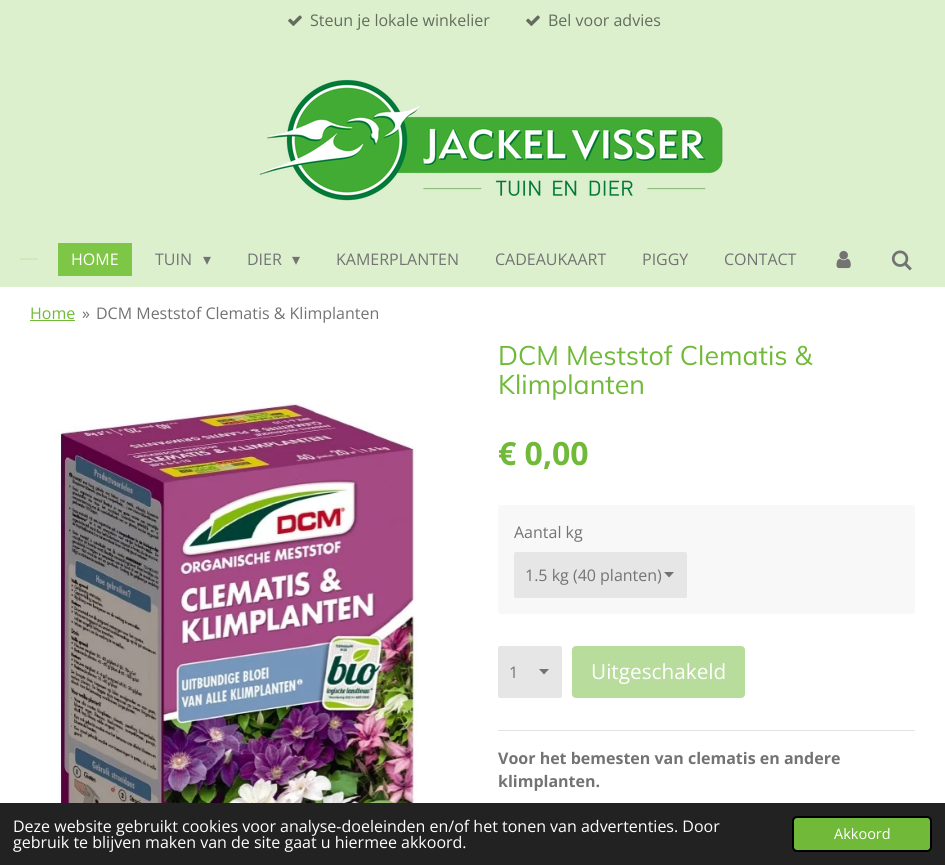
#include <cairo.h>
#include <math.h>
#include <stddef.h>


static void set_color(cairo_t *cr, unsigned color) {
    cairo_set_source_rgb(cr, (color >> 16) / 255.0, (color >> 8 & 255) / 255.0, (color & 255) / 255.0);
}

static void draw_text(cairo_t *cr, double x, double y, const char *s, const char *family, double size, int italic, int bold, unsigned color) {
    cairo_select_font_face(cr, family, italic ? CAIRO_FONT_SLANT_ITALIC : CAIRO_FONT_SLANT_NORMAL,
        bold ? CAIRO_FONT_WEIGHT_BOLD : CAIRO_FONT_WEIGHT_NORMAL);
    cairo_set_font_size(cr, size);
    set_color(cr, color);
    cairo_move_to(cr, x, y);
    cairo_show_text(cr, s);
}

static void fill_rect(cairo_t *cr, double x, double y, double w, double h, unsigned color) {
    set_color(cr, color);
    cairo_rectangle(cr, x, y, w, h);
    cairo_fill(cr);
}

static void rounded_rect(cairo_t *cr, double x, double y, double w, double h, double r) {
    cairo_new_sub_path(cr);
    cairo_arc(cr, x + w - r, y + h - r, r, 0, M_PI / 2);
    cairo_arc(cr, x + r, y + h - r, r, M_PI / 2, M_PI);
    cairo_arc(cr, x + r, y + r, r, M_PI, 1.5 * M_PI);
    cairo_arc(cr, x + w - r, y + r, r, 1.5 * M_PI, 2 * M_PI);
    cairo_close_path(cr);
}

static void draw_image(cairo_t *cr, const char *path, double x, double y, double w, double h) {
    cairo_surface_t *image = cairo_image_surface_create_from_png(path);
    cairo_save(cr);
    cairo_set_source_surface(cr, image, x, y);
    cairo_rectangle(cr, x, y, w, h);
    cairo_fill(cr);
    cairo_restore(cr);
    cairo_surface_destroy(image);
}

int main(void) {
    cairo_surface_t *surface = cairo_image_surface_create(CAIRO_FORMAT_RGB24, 945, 865);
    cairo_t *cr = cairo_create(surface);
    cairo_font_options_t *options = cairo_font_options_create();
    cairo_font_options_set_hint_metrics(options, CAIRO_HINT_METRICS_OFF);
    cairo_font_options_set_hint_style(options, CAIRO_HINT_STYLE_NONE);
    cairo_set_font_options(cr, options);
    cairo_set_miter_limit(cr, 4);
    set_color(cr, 0xDDF0CE);
    cairo_paint(cr);
    draw_image(cr, "assets/img1.png", 288, 15, 14, 11);
    draw_text(cr, 310, 26, "Steun je lokale winkelier", "Open Sans", 16, 0, 0, 0x636C5D);
    draw_image(cr, "assets/img1.png", 526, 15, 14, 11);
    draw_text(cr, 548, 26, "Bel voor advies", "Open Sans", 16, 0, 0, 0x636C5D);
    draw_image(cr, "assets/img2.png", 259, 79, 464, 122);
    fill_rect(cr, 20, 258, 18, 2, 0xCFEABA);
    fill_rect(cr, 58, 243, 74, 33, 0x7EC645);
    draw_text(cr, 71, 265, "HOME", "Open Sans", 16, 0, 0, 0xFFFFFF);
    draw_text(cr, 155, 265, "TUIN", "Open Sans", 16, 0, 0, 0x737373);
    draw_text(cr, 203, 265, "▾", "DejaVu Sans", 16, 0, 0, 0x737373);
    draw_text(cr, 247, 265, "DIER", "Open Sans", 16, 0, 0, 0x737373);
    draw_text(cr, 292, 265, "▾", "DejaVu Sans", 16, 0, 0, 0x737373);
    draw_text(cr, 336, 265, "KAMERPLANTEN", "Open Sans", 16, 0, 0, 0x737373);
    draw_text(cr, 495, 265, "CADEAUKAART", "Open Sans", 16, 0, 0, 0x737373);
    draw_text(cr, 642, 265, "PIGGY", "Open Sans", 16, 0, 0, 0x737373);
    draw_text(cr, 724, 265, "CONTACT", "Open Sans", 16, 0, 0, 0x737373);
    draw_image(cr, "assets/img3.png", 836, 250, 15, 19);
    draw_image(cr, "assets/img4.png", 891, 250, 21, 21);
    fill_rect(cr, 0, 287, 945, 516, 0xFFFFFF);
    draw_text(cr, 30, 319, "Home", "Open Sans", 16, 0, 0, 0x71B939);
    fill_rect(cr, 30, 320, 45, 1, 0x71B939);
    draw_text(cr, 82, 319, "»", "Open Sans", 16, 0, 0, 0x737373);
    draw_text(cr, 96, 319, "DCM Meststof Clematis & Klimplanten", "Open Sans", 16, 0, 0, 0x737373);
    draw_text(cr, 498, 365, "DCM Meststof Clematis &", "Muli", 26.75, 0, 0, 0x71B939);
    draw_text(cr, 498, 394, "Klimplanten", "Muli", 26.75, 0, 0, 0x71B939);
    draw_image(cr, "assets/img5.png", 57, 402, 360, 401);
    draw_text(cr, 498, 465, "€ 0,00", "Open Sans", 32, 0, 1, 0x71B939);
    set_color(cr, 0xF8F8F8);
    rounded_rect(cr, 498, 505, 417, 109, 3);
    cairo_fill(cr);
    draw_text(cr, 514, 538, "Aantal kg", "Open Sans", 16, 0, 0, 0x737373);
    set_color(cr, 0xE6E6E6);
    rounded_rect(cr, 514, 552, 173, 46, 2);
    cairo_fill(cr);
    set_color(cr, 0x737373);
    cairo_new_path(cr);
    cairo_move_to(cr, 669, 577.5);
    cairo_line_to(cr, 664, 572);
    cairo_line_to(cr, 674, 572);
    cairo_close_path(cr);
    cairo_fill(cr);
    draw_text(cr, 525, 581, "1.5 kg (40 planten)", "Open Sans", 16, 0, 0, 0x737373);
    set_color(cr, 0xE6E6E6);
    rounded_rect(cr, 498, 646, 64, 52, 2);
    cairo_fill(cr);
    set_color(cr, 0x737373);
    cairo_new_path(cr);
    cairo_move_to(cr, 544, 674.5);
    cairo_line_to(cr, 539, 669);
    cairo_line_to(cr, 549, 669);
    cairo_close_path(cr);
    cairo_fill(cr);
    draw_text(cr, 509, 678, "1", "Open Sans", 16, 0, 0, 0x737373);
    set_color(cr, 0xB8DC9C);
    rounded_rect(cr, 572, 646, 173, 52, 4);
    cairo_fill(cr);
    draw_text(cr, 591, 679, "Uitgeschakeld", "Open Sans", 20.75, 0, 0, 0xFFFFFF);
    fill_rect(cr, 498, 730, 417, 1, 0xE3E3E3);
    draw_text(cr, 498, 764, "Voor het bemesten van clematis en andere", "Open Sans", 16, 0, 1, 0x737373);
    draw_text(cr, 498, 787, "klimplanten.", "Open Sans", 16, 0, 1, 0x737373);
    fill_rect(cr, 0, 803, 945, 62, 0x222222);
    draw_text(cr, 13, 832, "Deze website gebruikt cookies voor analyse-doeleinden en/of het tonen van advertenties. Door", "Open Sans", 16, 0, 0, 0xFFFFFF);
    draw_text(cr, 13, 848, "gebruik te blijven maken van de site gaat u hiermee akkoord.", "Open Sans", 16, 0, 0, 0xFFFFFF);
    set_color(cr, 0x71B939);
    rounded_rect(cr, 793, 817, 138, 34, 4);
    cairo_fill_preserve(cr);
    set_color(cr, 0x000000);
    cairo_stroke(cr);
    draw_text(cr, 834, 839, "Akkoord", "Open Sans", 14.5, 0, 0, 0xFFFFFF);
    cairo_surface_write_to_png(surface, "output.png");
    cairo_font_options_destroy(options);
    cairo_destroy(cr);
    cairo_surface_destroy(surface);
    return 0;
}
